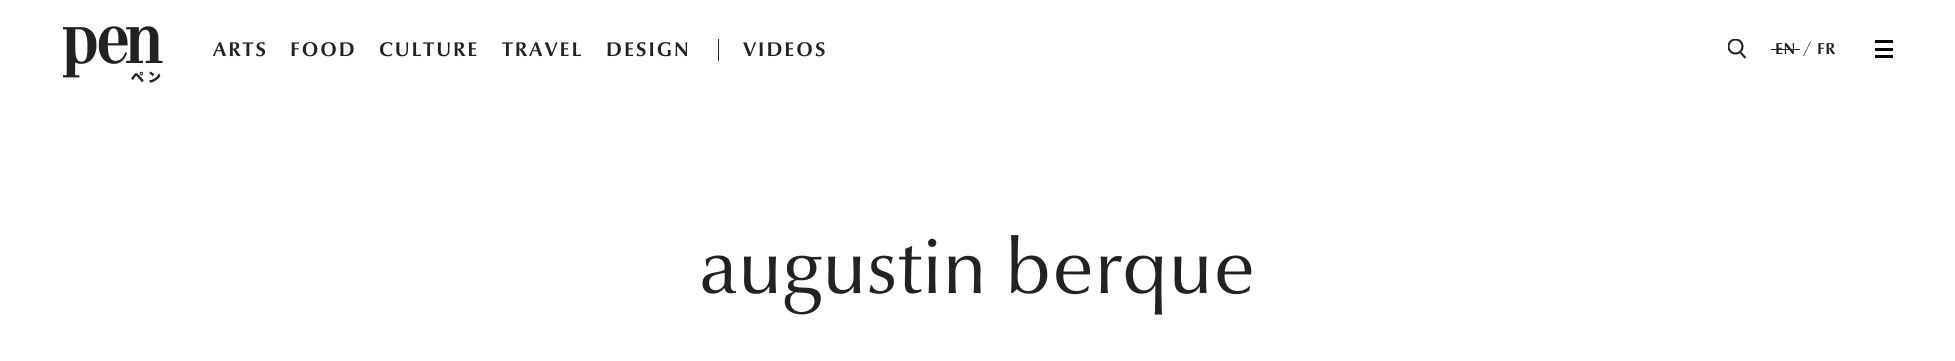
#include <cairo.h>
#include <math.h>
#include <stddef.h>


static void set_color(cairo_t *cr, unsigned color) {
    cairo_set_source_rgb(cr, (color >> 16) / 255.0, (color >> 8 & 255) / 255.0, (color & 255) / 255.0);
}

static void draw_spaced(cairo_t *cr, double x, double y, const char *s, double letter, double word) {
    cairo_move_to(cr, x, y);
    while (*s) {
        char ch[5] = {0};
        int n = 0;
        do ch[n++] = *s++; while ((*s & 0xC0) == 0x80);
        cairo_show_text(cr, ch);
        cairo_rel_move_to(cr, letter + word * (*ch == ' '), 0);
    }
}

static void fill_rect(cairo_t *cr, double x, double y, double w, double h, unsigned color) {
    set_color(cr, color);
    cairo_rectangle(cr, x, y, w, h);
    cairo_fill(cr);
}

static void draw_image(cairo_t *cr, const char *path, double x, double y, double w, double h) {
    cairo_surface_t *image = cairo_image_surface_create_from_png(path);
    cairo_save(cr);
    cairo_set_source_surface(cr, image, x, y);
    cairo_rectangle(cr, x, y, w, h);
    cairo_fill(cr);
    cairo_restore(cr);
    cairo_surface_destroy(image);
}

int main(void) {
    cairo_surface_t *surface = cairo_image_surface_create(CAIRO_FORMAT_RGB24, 1955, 361);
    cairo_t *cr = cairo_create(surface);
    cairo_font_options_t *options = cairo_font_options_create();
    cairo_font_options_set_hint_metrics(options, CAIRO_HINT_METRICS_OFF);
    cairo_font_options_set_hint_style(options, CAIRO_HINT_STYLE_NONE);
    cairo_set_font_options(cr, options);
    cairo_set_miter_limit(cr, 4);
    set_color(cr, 0xFFFFFF);
    cairo_paint(cr);
    draw_image(cr, "assets/img1.png", 63, 26, 100, 57);
    cairo_select_font_face(cr, "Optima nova", CAIRO_FONT_SLANT_NORMAL, CAIRO_FONT_WEIGHT_BOLD);
    cairo_set_font_size(cr, 20);
    set_color(cr, 0x222222);
    draw_spaced(cr, 213, 56, "ARTS", 2, 0);
    draw_spaced(cr, 290, 56, "FOOD", 2, 0);
    draw_spaced(cr, 379, 56, "CULTURE", 2, 0);
    draw_spaced(cr, 502, 56, "TRAVEL", 2, 0);
    draw_spaced(cr, 606, 56, "DESIGN", 2, 0);
    fill_rect(cr, 718, 39, 1, 22, 0x222222);
    draw_spaced(cr, 743, 56, "VIDEOS", 2, 0);
    cairo_new_path(cr);
    cairo_move_to(cr, 1740.5, 52.5);
    cairo_line_to(cr, 1745.5, 58);
    cairo_set_line_width(cr, 2.1);
    cairo_stroke(cr);
    cairo_save(cr);
    cairo_rectangle(cr, 1728, 39, 18, 20);
    cairo_clip(cr);
    cairo_arc(cr, 1735.5, 46.5, 7, 0, 2 * M_PI);
    cairo_stroke(cr);
    cairo_restore(cr);
    cairo_set_font_size(cr, 16);
    draw_spaced(cr, 1775, 54, "EN", 0.5, 0);
    fill_rect(cr, 1771, 49, 29, 1, 0x222222);
    cairo_select_font_face(cr, "Optima nova", CAIRO_FONT_SLANT_NORMAL, CAIRO_FONT_WEIGHT_NORMAL);
    draw_spaced(cr, 1803, 54, "/", 0.5, 0);
    cairo_select_font_face(cr, "Optima nova", CAIRO_FONT_SLANT_NORMAL, CAIRO_FONT_WEIGHT_BOLD);
    draw_spaced(cr, 1817, 54, "FR", 0.5, 0);
    fill_rect(cr, 1875, 40, 18, 3, 0x000000);
    fill_rect(cr, 1875, 48, 18, 3, 0x000000);
    fill_rect(cr, 1875, 55, 18, 3, 0x000000);
    cairo_select_font_face(cr, "Optima nova", CAIRO_FONT_SLANT_NORMAL, CAIRO_FONT_WEIGHT_NORMAL);
    cairo_set_font_size(cr, 77.5);
    set_color(cr, 0x222222);
    draw_spaced(cr, 699, 293, "augustin berque", 0.5, 0);
    cairo_surface_write_to_png(surface, "output.png");
    cairo_font_options_destroy(options);
    cairo_destroy(cr);
    cairo_surface_destroy(surface);
    return 0;
}
